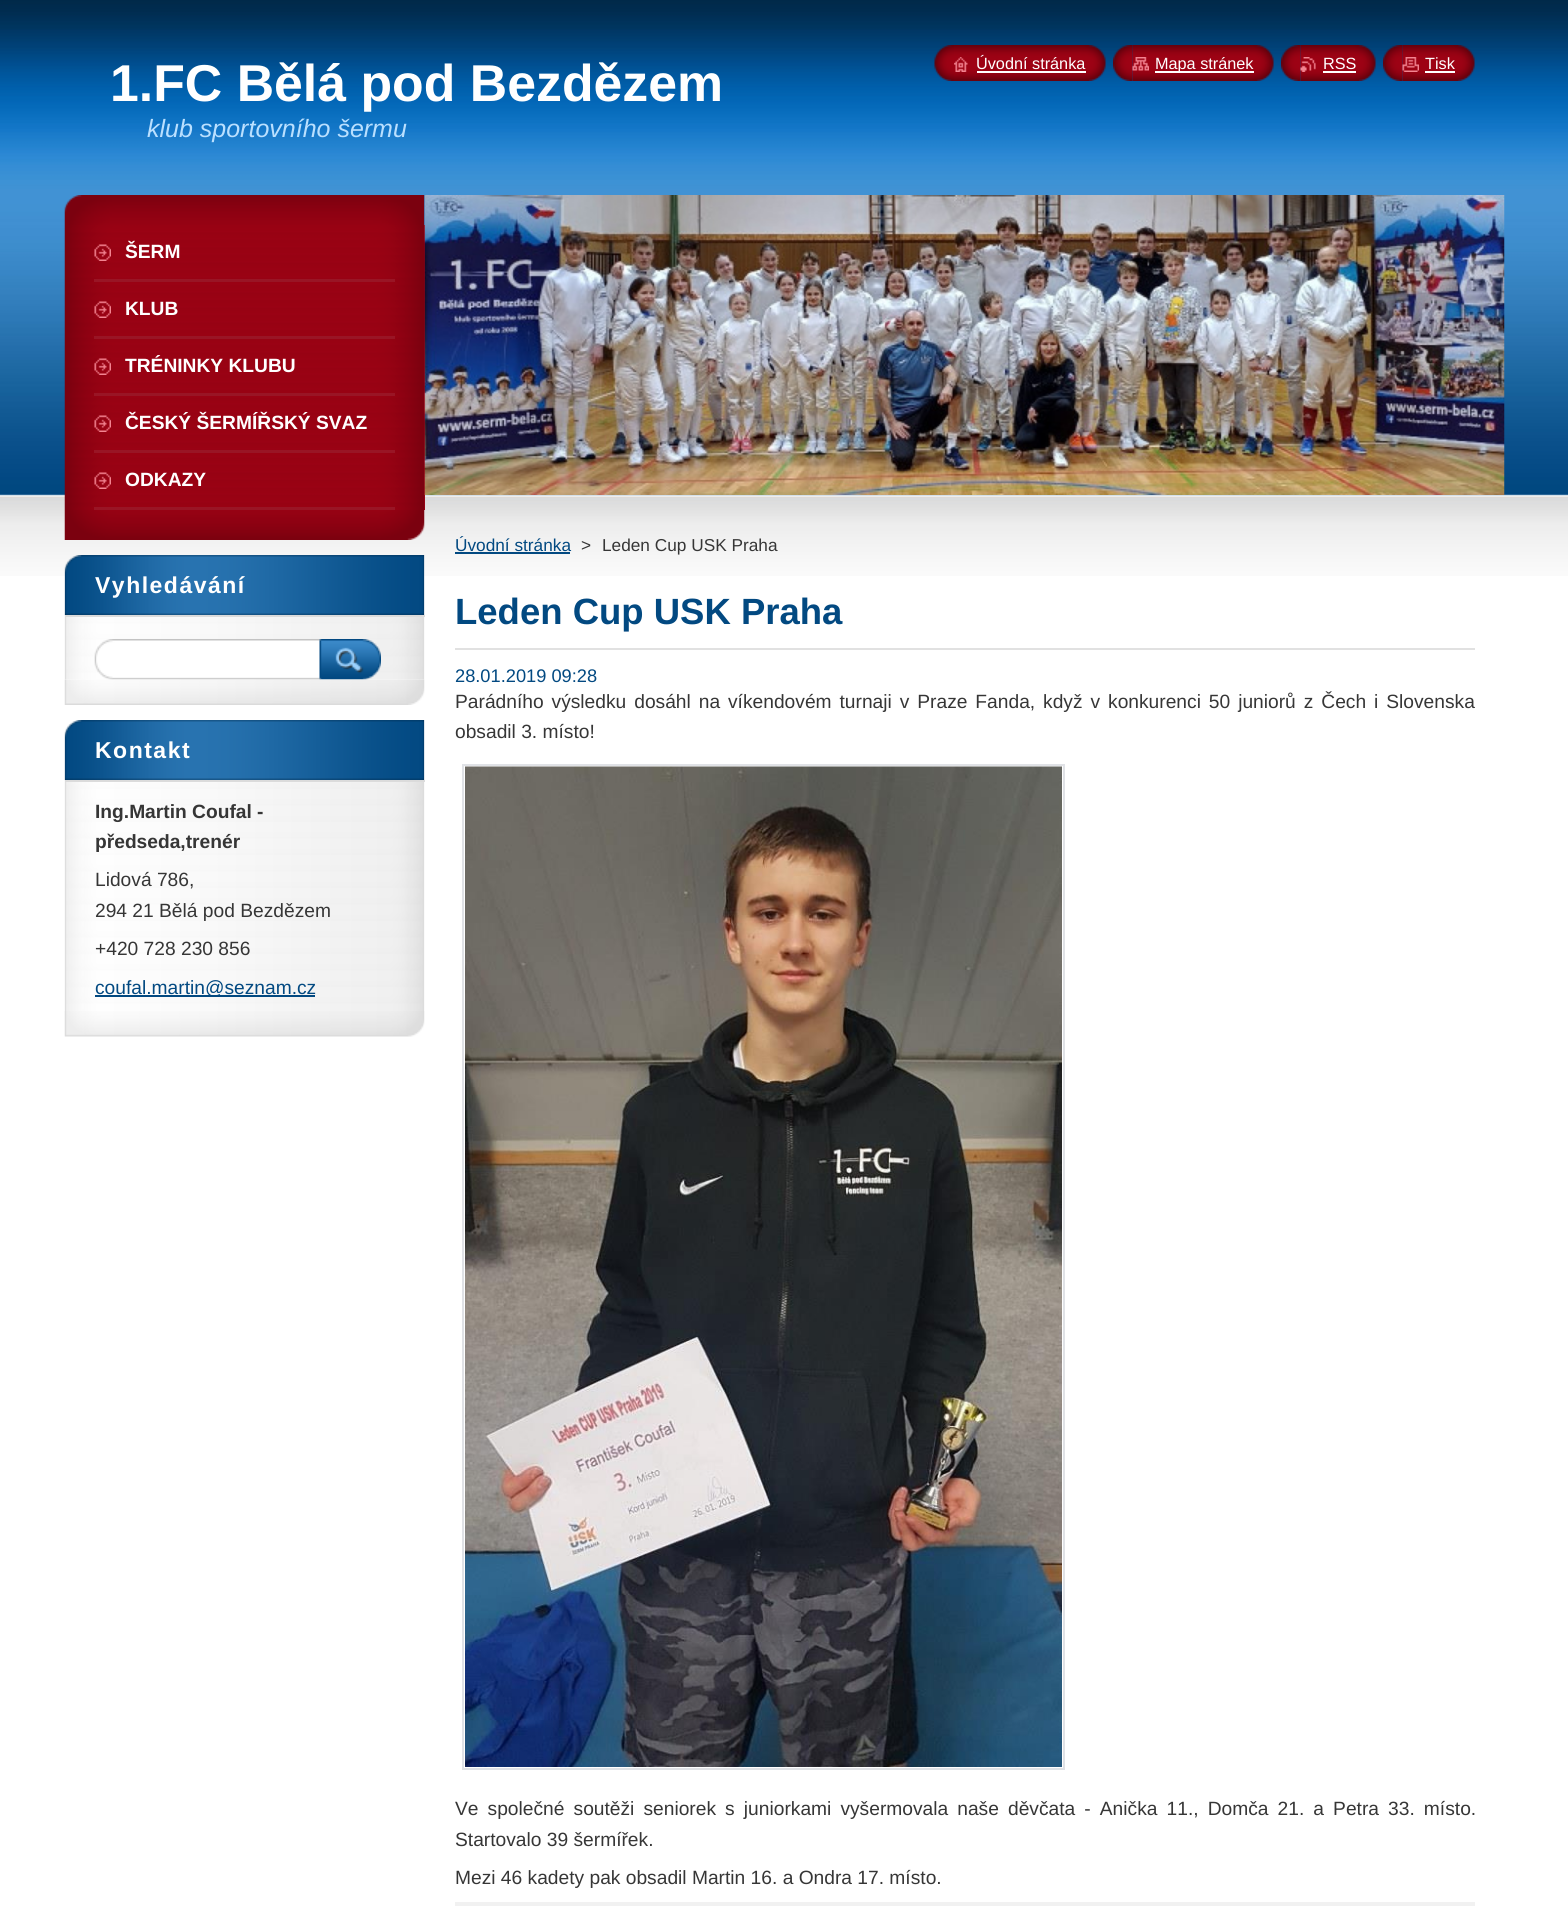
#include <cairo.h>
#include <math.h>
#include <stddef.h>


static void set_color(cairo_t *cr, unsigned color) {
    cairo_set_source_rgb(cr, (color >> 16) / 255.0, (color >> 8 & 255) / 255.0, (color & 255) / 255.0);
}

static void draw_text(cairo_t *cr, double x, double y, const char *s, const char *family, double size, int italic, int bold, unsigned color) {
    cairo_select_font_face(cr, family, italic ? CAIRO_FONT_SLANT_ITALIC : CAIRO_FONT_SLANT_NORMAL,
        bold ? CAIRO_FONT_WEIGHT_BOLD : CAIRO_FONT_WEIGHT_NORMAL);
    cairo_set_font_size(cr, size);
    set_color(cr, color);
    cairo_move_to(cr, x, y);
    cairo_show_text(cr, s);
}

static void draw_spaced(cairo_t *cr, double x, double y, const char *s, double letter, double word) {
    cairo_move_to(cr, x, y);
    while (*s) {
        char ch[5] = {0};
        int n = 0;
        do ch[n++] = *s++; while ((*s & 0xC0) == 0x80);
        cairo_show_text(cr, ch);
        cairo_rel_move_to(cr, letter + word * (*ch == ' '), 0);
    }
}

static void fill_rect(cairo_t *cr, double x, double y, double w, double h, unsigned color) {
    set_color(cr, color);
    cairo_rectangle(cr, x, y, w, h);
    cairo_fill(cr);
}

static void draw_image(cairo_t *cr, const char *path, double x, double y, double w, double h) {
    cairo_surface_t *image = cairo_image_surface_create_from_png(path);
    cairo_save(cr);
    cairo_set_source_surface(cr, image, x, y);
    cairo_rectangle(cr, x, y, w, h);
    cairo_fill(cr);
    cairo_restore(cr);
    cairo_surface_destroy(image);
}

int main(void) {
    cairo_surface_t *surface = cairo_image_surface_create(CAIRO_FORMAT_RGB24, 1568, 1906);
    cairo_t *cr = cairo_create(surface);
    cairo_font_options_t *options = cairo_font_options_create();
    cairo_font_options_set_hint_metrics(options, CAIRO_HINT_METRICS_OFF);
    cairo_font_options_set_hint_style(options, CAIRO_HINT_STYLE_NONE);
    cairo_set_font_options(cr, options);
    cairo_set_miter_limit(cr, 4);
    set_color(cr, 0xFFFFFF);
    cairo_paint(cr);
    draw_image(cr, "assets/img1.png", 0, 0, 1568, 576);
    draw_text(cr, 110, 101, "1.FC Bělá pod Bezdězem", "Liberation Sans", 51.8, 0, 1, 0xFFFFFF);
    draw_text(cr, 147, 137, "klub sportovního šermu", "Liberation Sans", 25, 1, 0, 0xBAE0FF);
    draw_image(cr, "assets/img2.png", 934, 45, 20, 36);
    draw_image(cr, "assets/img3.png", 954, 45, 152, 36);
    draw_image(cr, "assets/img4.png", 954, 57, 14, 15);
    draw_text(cr, 976, 69, "Úvodní stránka", "Liberation Sans", 16.25, 0, 0, 0xFFFFFF);
    fill_rect(cr, 977, 71, 109, 2, 0xFFFFFF);
    draw_image(cr, "assets/img5.png", 1113, 45, 20, 36);
    draw_image(cr, "assets/img6.png", 1132, 45, 142, 36);
    draw_image(cr, "assets/img7.png", 1132, 57, 17, 14);
    fill_rect(cr, 1155, 71, 99, 2, 0xFFFFFF);
    draw_text(cr, 1155, 69, "Mapa stránek", "Liberation Sans", 16.25, 0, 0, 0xFFFFFF);
    draw_image(cr, "assets/img8.png", 1281, 45, 20, 36);
    draw_image(cr, "assets/img9.png", 1300, 45, 76, 36);
    draw_image(cr, "assets/img10.png", 1300, 57, 16, 15);
    draw_text(cr, 1323, 69, "RSS", "Liberation Sans", 16.25, 0, 0, 0xFFFFFF);
    fill_rect(cr, 1323, 71, 33, 2, 0xFFFFFF);
    draw_image(cr, "assets/img8.png", 1383, 45, 20, 36);
    draw_image(cr, "assets/img11.png", 1402, 45, 73, 36);
    draw_image(cr, "assets/img12.png", 1402, 57, 17, 15);
    draw_text(cr, 1425, 69, "Tisk", "Liberation Sans", 16.25, 0, 0, 0xFFFFFF);
    fill_rect(cr, 1425, 71, 30, 2, 0xFFFFFF);
    draw_image(cr, "assets/img13.png", 64, 195, 361, 30);
    draw_image(cr, "assets/img14.png", 64, 510, 361, 30);
    fill_rect(cr, 424, 225, 1, 285, 0x9D0214);
    draw_image(cr, "assets/img15.png", 64, 225, 361, 285);
    fill_rect(cr, 94, 279, 301, 3, 0x991525);
    draw_image(cr, "assets/img16.png", 94, 244, 17, 17);
    draw_text(cr, 125, 258, "ŠERM", "Liberation Sans", 19.2, 0, 1, 0xFFFFFF);
    fill_rect(cr, 94, 336, 301, 3, 0x991525);
    draw_image(cr, "assets/img17.png", 94, 301, 17, 17);
    draw_text(cr, 125, 315, "KLUB", "Liberation Sans", 19.2, 0, 1, 0xFFFFFF);
    fill_rect(cr, 94, 393, 301, 3, 0x991525);
    draw_image(cr, "assets/img18.png", 94, 358, 17, 17);
    draw_text(cr, 125, 372, "TRÉNINKY KLUBU", "Liberation Sans", 19.2, 0, 1, 0xFFFFFF);
    fill_rect(cr, 94, 450, 301, 3, 0x991525);
    draw_image(cr, "assets/img19.png", 94, 415, 17, 17);
    draw_text(cr, 125, 429, "ČESKÝ ŠERMÍŘSKÝ SVAZ", "Liberation Sans", 19.2, 0, 1, 0xFFFFFF);
    fill_rect(cr, 94, 507, 301, 3, 0x991525);
    draw_image(cr, "assets/img20.png", 94, 472, 17, 17);
    draw_text(cr, 125, 486, "ODKAZY", "Liberation Sans", 19.2, 0, 1, 0xFFFFFF);
    draw_image(cr, "assets/img21.png", 64, 679, 361, 26);
    draw_image(cr, "assets/img22.png", 64, 555, 361, 60);
    cairo_set_font_size(cr, 23);
    draw_spaced(cr, 95, 593, "Vyhledávání", 1.5, 0);
    draw_image(cr, "assets/img23.png", 64, 615, 361, 65);
    fill_rect(cr, 65, 615, 360, 2, 0xDBDBDB);
    draw_image(cr, "assets/img24.png", 94, 639, 227, 41);
    draw_image(cr, "assets/img25.png", 319, 639, 62, 41);
    draw_image(cr, "assets/img26.png", 64, 1011, 361, 26);
    draw_image(cr, "assets/img27.png", 64, 720, 361, 60);
    set_color(cr, 0xFFFFFF);
    draw_spaced(cr, 95, 758, "Kontakt", 1.5, 0);
    draw_image(cr, "assets/img28.png", 64, 780, 361, 231);
    fill_rect(cr, 65, 780, 360, 2, 0xDBDBDB);
    draw_text(cr, 95, 818, "Ing.Martin Coufal -", "Liberation Sans", 19.2, 0, 1, 0x363636);
    draw_text(cr, 95, 848, "předseda,trenér", "Liberation Sans", 19.2, 0, 1, 0x363636);
    draw_text(cr, 95, 886, "Lidová 786,", "Liberation Sans", 19.2, 0, 0, 0x363636);
    draw_text(cr, 95, 917, "294 21 Bělá pod Bezdězem", "Liberation Sans", 19.2, 0, 0, 0x363636);
    draw_text(cr, 95, 955, "+420 728 230 856", "Liberation Sans", 19.2, 0, 0, 0x363636);
    fill_rect(cr, 95, 995, 220, 2, 0x024981);
    draw_text(cr, 95, 994, "coufal.martin@seznam.cz", "Liberation Sans", 19.2, 0, 0, 0x024981);
    draw_image(cr, "assets/img29.png", 424, 195, 1081, 300);
    draw_text(cr, 455, 551, "Úvodní stránka", "Liberation Sans", 17.25, 0, 0, 0x024981);
    fill_rect(cr, 455, 552, 115, 2, 0x024981);
    draw_text(cr, 581, 551, ">", "Liberation Sans", 17.25, 0, 0, 0x363636);
    draw_text(cr, 602, 551, "Leden Cup USK Praha", "Liberation Sans", 17.25, 0, 0, 0x363636);
    fill_rect(cr, 455, 648, 1020, 2, 0xE1E1E1);
    draw_text(cr, 455, 624, "Leden Cup USK Praha", "Liberation Sans", 36.5, 0, 1, 0x024981);
    draw_text(cr, 455, 682, "28.01.2019 09:28", "Liberation Sans", 18.25, 0, 0, 0x024981);
    cairo_set_font_size(cr, 19.2);
    set_color(cr, 0x363636);
    draw_spaced(cr, 455, 708, "Parádního výsledku dosáhl na víkendovém turnaji v Praze Fanda, když v konkurenci 50 juniorů z Čech i Slovenska", 0, 2.6);
    draw_text(cr, 455, 738, "obsadil 3. místo!", "Liberation Sans", 19.2, 0, 0, 0x363636);
    cairo_rectangle(cr, 463, 765, 601, 1004);
    set_color(cr, 0xE0E2E6);
    cairo_stroke(cr);
    draw_image(cr, "assets/img30.png", 465, 766, 597, 1001);
    set_color(cr, 0x363636);
    draw_spaced(cr, 455, 1815, "Ve společné soutěži seniorek s juniorkami vyšermovala naše děvčata - Anička 11., Domča 21. a Petra 33. místo.", 0, 3.75);
    draw_text(cr, 455, 1846, "Startovalo 39 šermířek.", "Liberation Sans", 19.2, 0, 0, 0x363636);
    draw_text(cr, 455, 1884, "Mezi 46 kadety pak obsadil Martin 16. a Ondra 17. místo.", "Liberation Sans", 19.2, 0, 0, 0x363636);
    fill_rect(cr, 455, 1902, 1020, 4, 0xF1F1F1);
    cairo_surface_write_to_png(surface, "output.png");
    cairo_font_options_destroy(options);
    cairo_destroy(cr);
    cairo_surface_destroy(surface);
    return 0;
}
